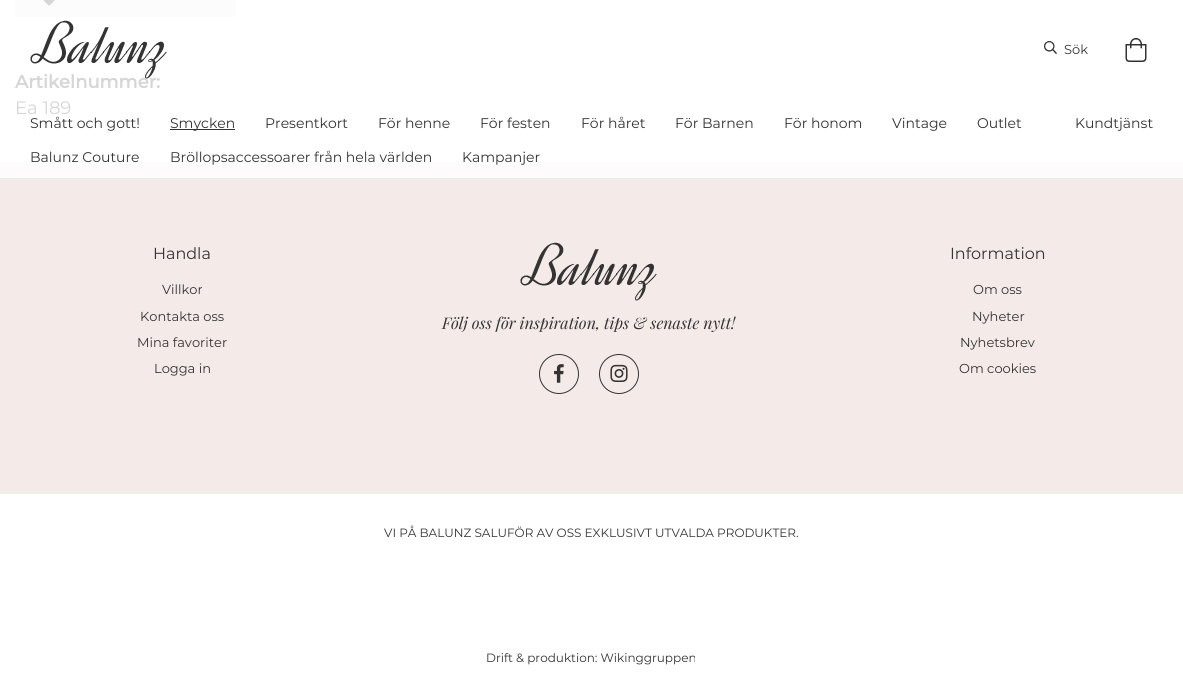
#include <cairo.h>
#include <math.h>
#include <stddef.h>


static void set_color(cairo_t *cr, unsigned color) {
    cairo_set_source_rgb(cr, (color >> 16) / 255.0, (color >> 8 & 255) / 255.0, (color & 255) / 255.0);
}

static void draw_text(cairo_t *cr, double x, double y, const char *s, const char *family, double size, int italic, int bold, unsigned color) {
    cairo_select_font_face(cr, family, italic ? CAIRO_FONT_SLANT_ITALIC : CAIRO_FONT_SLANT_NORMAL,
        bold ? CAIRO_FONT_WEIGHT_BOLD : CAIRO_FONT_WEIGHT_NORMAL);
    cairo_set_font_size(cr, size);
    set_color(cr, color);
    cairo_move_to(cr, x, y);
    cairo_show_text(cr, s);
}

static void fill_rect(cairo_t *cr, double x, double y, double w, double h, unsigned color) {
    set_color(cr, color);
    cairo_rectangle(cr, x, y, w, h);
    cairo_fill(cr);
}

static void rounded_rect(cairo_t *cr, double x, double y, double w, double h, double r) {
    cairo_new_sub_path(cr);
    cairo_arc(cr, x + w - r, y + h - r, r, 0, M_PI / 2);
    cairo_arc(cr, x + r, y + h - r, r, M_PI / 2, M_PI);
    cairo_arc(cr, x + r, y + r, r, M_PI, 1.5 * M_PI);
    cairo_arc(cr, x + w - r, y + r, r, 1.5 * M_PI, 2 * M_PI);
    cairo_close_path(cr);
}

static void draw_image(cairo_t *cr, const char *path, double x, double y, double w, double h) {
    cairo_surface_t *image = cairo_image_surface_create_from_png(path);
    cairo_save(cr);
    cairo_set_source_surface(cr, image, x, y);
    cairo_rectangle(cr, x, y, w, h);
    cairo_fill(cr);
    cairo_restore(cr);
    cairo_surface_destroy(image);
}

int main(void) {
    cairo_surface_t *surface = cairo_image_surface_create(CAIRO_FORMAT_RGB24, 1183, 682);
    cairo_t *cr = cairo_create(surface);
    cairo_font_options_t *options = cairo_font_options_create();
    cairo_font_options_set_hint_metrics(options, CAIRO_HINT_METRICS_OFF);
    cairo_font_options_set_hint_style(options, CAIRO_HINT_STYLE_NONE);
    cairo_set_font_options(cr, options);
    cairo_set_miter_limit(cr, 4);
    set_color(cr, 0xFFFFFF);
    cairo_paint(cr);
    draw_text(cr, 15, 88, "Artikelnummer:", "Montserrat", 18, 0, 1, 0xD6D6D6);
    draw_image(cr, "assets/img1.png", 30, 20, 137, 59);
    draw_image(cr, "assets/img2.png", 1044, 41, 13, 13);
    draw_text(cr, 1064, 54, "Sök", "Montserrat", 13, 0, 0, 0x333333);
    draw_image(cr, "assets/img3.png", 1125, 38, 22, 24);
    fill_rect(cr, 0, 178, 1183, 1, 0xEBEAEA);
    draw_text(cr, 30, 128, "Smått och gott!", "Montserrat", 14, 0, 0, 0x333333);
    fill_rect(cr, 170, 129, 65, 1, 0x333333);
    draw_text(cr, 170, 128, "Smycken", "Montserrat", 14, 0, 0, 0x333333);
    draw_text(cr, 265, 128, "Presentkort", "Montserrat", 14, 0, 0, 0x333333);
    draw_text(cr, 378, 128, "För henne", "Montserrat", 14, 0, 0, 0x333333);
    draw_text(cr, 480, 128, "För festen", "Montserrat", 14, 0, 0, 0x333333);
    draw_text(cr, 581, 128, "För håret", "Montserrat", 14, 0, 0, 0x333333);
    draw_text(cr, 675, 128, "För Barnen", "Montserrat", 14, 0, 0, 0x333333);
    draw_text(cr, 784, 128, "För honom", "Montserrat", 14, 0, 0, 0x333333);
    draw_text(cr, 892, 128, "Vintage", "Montserrat", 14, 0, 0, 0x333333);
    draw_text(cr, 977, 128, "Outlet", "Montserrat", 14, 0, 0, 0x333333);
    fill_rect(cr, 0, 162, 1183, 16, 0xFDFBFB);
    draw_text(cr, 30, 162, "Balunz Couture", "Montserrat", 14, 0, 0, 0x333333);
    draw_text(cr, 170, 162, "Bröllopsaccessoarer från hela världen", "Montserrat", 14, 0, 0, 0x333333);
    draw_text(cr, 462, 162, "Kampanjer", "Montserrat", 14, 0, 0, 0x333333);
    draw_text(cr, 1075, 128, "Kundtjänst", "Montserrat", 14, 0, 0, 0x333333);
    set_color(cr, 0xFCFCFC);
    rounded_rect(cr, 15, -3, 221, 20, 3);
    cairo_fill(cr);
    draw_image(cr, "assets/img4.png", 43, 0, 12, 6);
    draw_text(cr, 15, 114, "Ea 189", "Montserrat", 18, 0, 0, 0xD6D6D6);
    fill_rect(cr, 0, 179, 1183, 315, 0xF4EBE9);
    draw_text(cr, 153, 259, "Handla", "Montserrat", 16, 0, 0, 0x333333);
    draw_text(cr, 162, 294, "Villkor", "Montserrat", 13, 0, 0, 0x333333);
    draw_text(cr, 140, 321, "Kontakta oss", "Montserrat", 13, 0, 0, 0x333333);
    draw_text(cr, 137, 347, "Mina favoriter", "Montserrat", 13, 0, 0, 0x333333);
    draw_text(cr, 154, 373, "Logga in", "Montserrat", 13, 0, 0, 0x333333);
    draw_image(cr, "assets/img5.png", 520, 242, 137, 59);
    draw_text(cr, 442, 329, "Följ oss för inspiration, tips & senaste nytt!", "Playfair Display", 16, 1, 0, 0x333333);
    cairo_new_path(cr);
    cairo_arc(cr, 559, 374, 19.5, 0, 2 * M_PI);
    cairo_set_line_width(cr, 1);
    cairo_stroke(cr);
    draw_image(cr, "assets/img6.png", 554, 364, 10, 19);
    cairo_arc(cr, 619, 374, 19.5, 0, 2 * M_PI);
    cairo_stroke(cr);
    draw_image(cr, "assets/img7.png", 610, 364, 18, 18);
    draw_text(cr, 950, 259, "Information", "Montserrat", 16, 0, 0, 0x333333);
    draw_text(cr, 973, 294, "Om oss", "Montserrat", 13, 0, 0, 0x333333);
    draw_text(cr, 972, 321, "Nyheter", "Montserrat", 13, 0, 0, 0x333333);
    draw_text(cr, 960, 347, "Nyhetsbrev", "Montserrat", 13, 0, 0, 0x333333);
    draw_text(cr, 959, 373, "Om cookies", "Montserrat", 13, 0, 0, 0x333333);
    draw_text(cr, 384, 537, "VI PÅ BALUNZ SALUFÖR AV OSS EXKLUSIVT UTVALDA PRODUKTER.", "Montserrat", 12, 0, 0, 0x333333);
    draw_text(cr, 486, 662, "Drift & produktion: Wikinggruppen", "Montserrat", 12, 0, 0, 0x333333);
    cairo_surface_write_to_png(surface, "output.png");
    cairo_font_options_destroy(options);
    cairo_destroy(cr);
    cairo_surface_destroy(surface);
    return 0;
}
